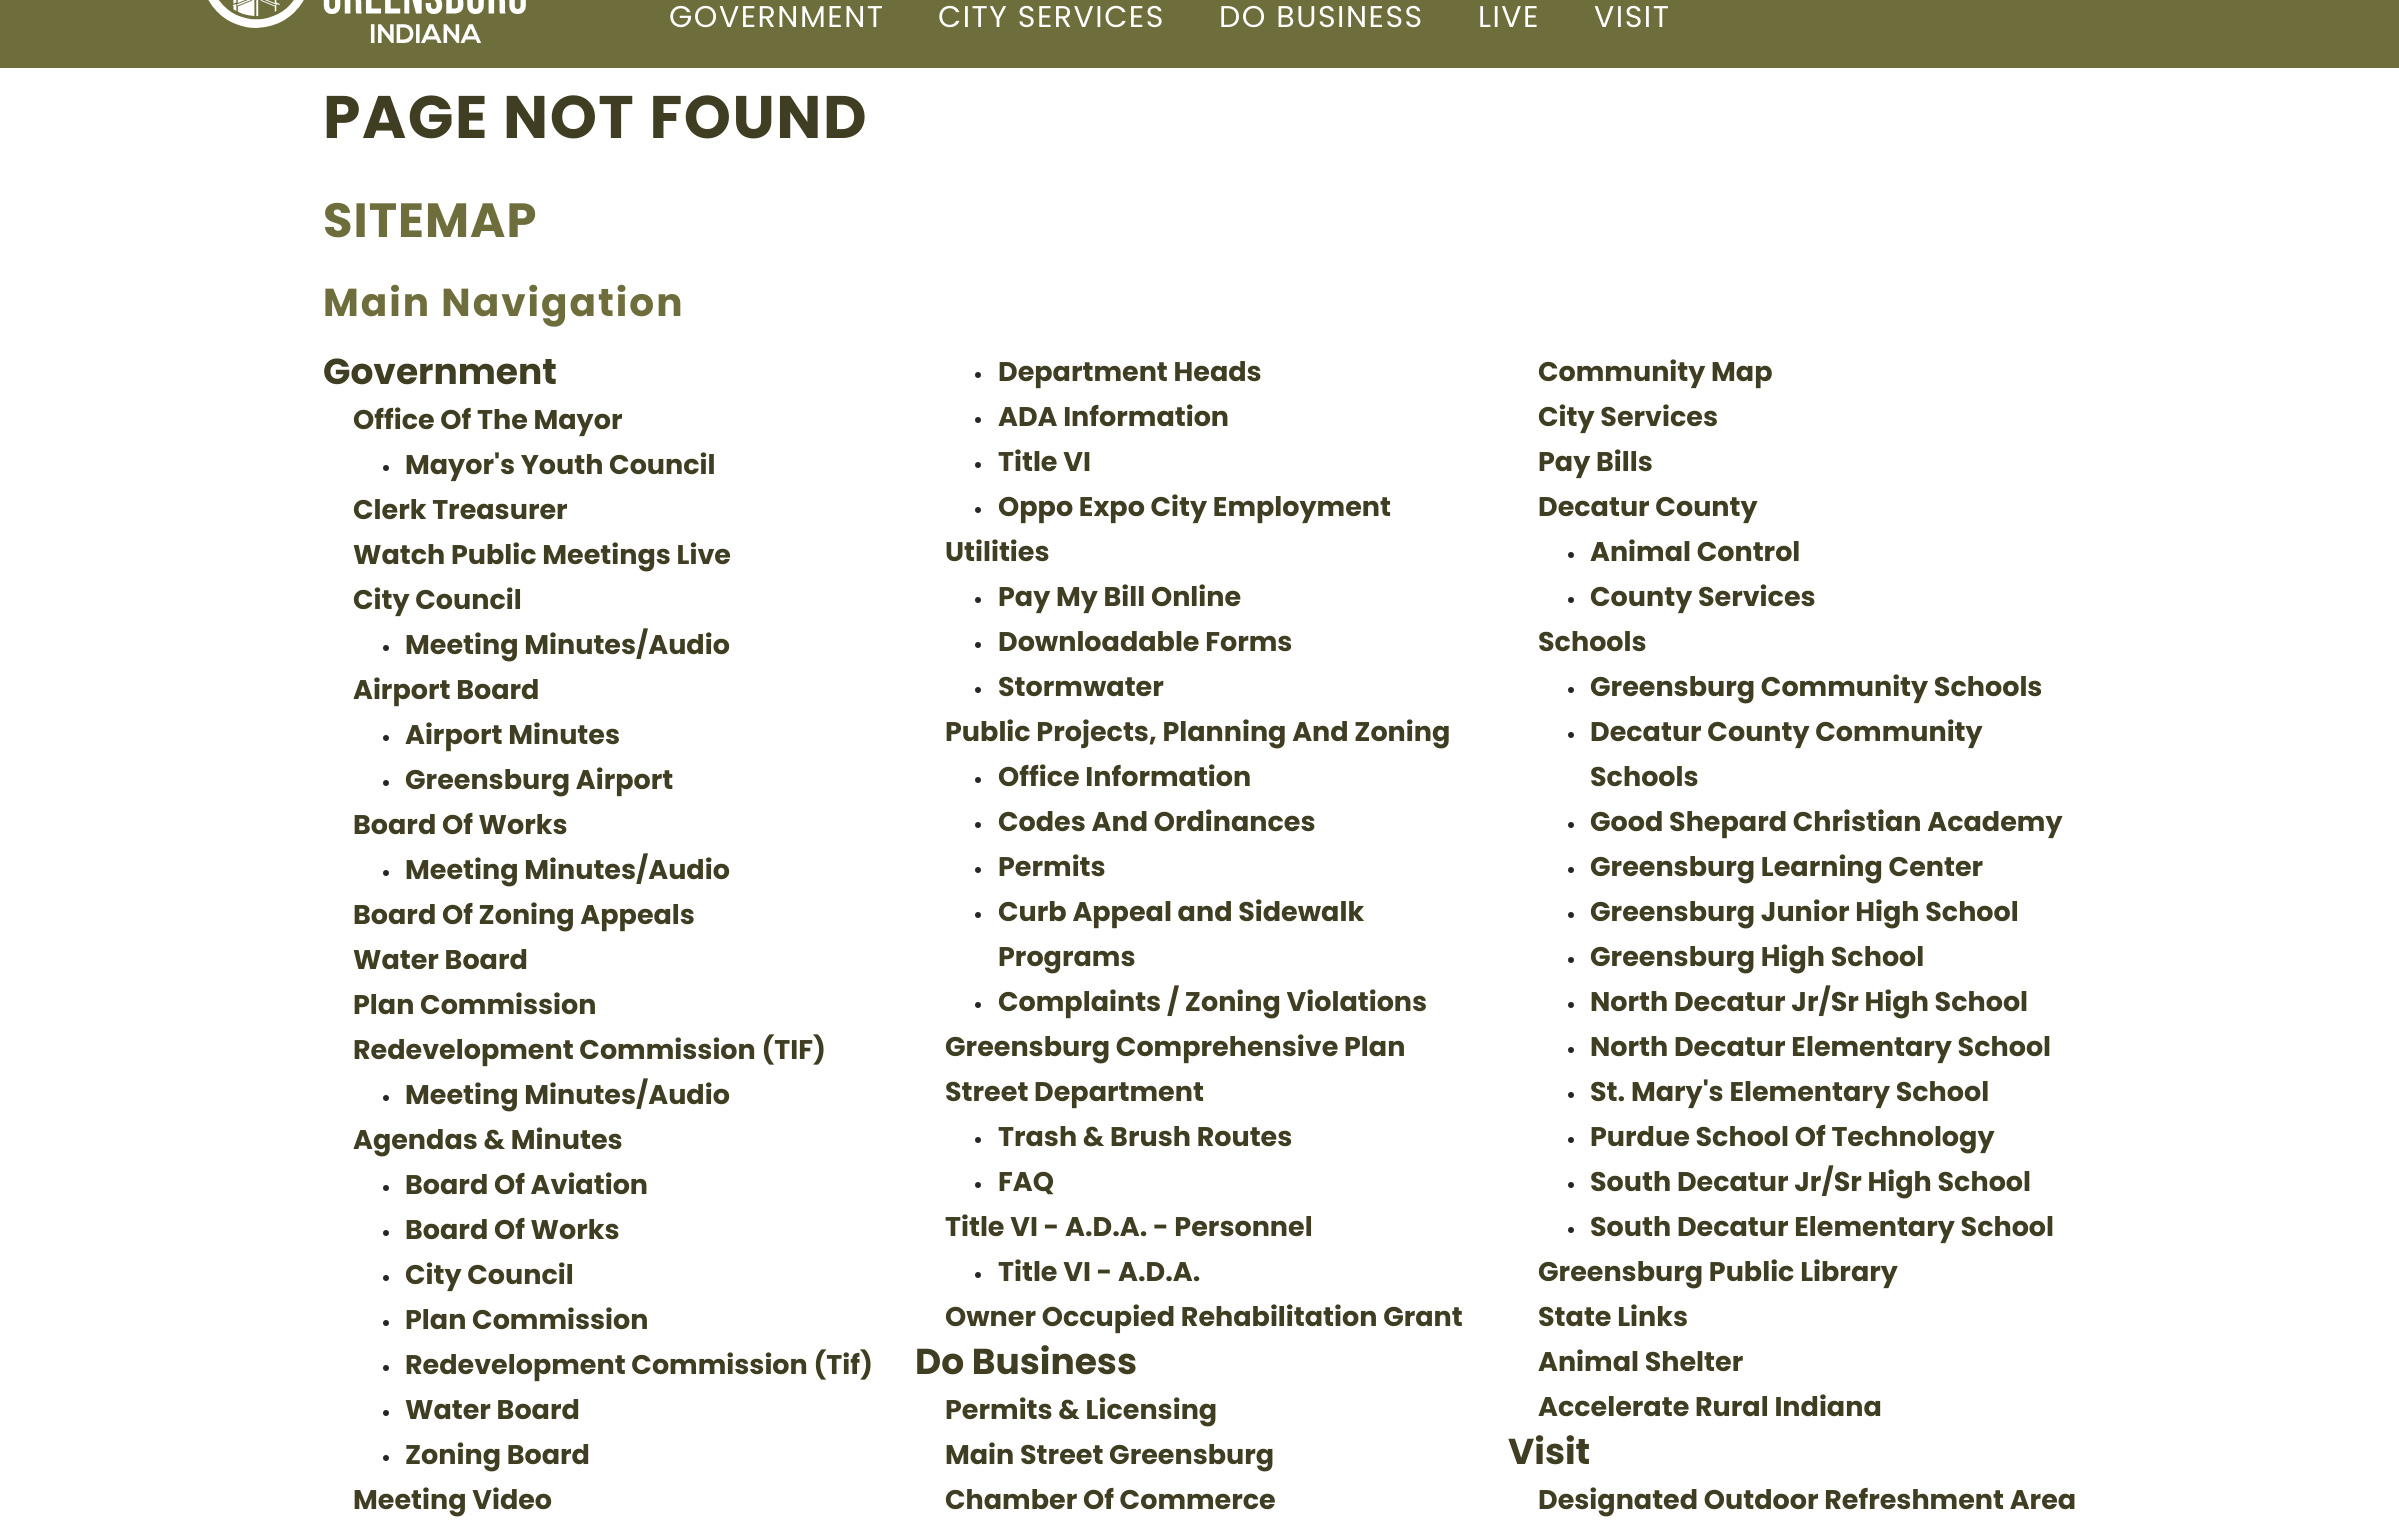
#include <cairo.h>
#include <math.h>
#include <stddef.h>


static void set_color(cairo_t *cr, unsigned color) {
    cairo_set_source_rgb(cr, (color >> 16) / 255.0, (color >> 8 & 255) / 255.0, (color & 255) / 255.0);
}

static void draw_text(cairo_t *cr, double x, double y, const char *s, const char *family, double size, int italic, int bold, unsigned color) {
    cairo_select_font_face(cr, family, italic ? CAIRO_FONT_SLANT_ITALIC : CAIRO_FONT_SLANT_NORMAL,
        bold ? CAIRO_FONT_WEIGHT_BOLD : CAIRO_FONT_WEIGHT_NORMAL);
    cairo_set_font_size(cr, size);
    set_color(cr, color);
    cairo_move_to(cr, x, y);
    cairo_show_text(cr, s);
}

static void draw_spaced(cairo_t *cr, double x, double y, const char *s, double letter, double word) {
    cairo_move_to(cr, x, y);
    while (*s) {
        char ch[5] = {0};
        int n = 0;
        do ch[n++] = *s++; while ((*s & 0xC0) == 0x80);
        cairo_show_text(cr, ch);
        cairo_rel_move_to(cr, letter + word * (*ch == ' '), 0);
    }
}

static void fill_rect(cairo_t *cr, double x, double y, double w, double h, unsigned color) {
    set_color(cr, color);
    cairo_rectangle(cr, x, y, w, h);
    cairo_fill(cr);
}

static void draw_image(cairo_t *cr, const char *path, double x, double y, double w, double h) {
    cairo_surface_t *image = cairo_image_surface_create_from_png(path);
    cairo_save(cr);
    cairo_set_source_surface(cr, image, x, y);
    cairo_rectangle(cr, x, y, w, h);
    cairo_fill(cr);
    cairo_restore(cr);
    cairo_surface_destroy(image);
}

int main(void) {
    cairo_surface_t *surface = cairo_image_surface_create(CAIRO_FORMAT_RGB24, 2399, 1540);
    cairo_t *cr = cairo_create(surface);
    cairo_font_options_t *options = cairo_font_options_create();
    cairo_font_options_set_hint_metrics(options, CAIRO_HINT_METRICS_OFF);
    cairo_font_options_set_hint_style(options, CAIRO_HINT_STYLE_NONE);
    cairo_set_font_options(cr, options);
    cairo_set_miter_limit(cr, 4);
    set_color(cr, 0xFFFFFF);
    cairo_paint(cr);
    fill_rect(cr, 0, 0, 2399, 68, 0x6E6D3C);
    draw_image(cr, "assets/img1.png", 208, 0, 318, 43);
    cairo_select_font_face(cr, "Poppins", CAIRO_FONT_SLANT_NORMAL, CAIRO_FONT_WEIGHT_NORMAL);
    cairo_set_font_size(cr, 30);
    set_color(cr, 0xFFFFFF);
    draw_spaced(cr, 669, 27, "GOVERNMENT", 1.5, 0);
    draw_spaced(cr, 938, 27, "CITY SERVICES", 1.5, 0);
    draw_spaced(cr, 1219, 27, "DO BUSINESS", 1.5, 0);
    draw_spaced(cr, 1478, 27, "LIVE", 1.5, 0);
    draw_spaced(cr, 1594, 27, "VISIT", 1.5, 0);
    cairo_select_font_face(cr, "Poppins", CAIRO_FONT_SLANT_NORMAL, CAIRO_FONT_WEIGHT_BOLD);
    cairo_set_font_size(cr, 60);
    set_color(cr, 0x3F3E22);
    draw_spaced(cr, 323, 138, "PAGE NOT FOUND", 1.5, 0);
    cairo_set_font_size(cr, 48);
    set_color(cr, 0x6E6D3C);
    draw_spaced(cr, 323, 237, "SITEMAP", 1, 0);
    cairo_set_font_size(cr, 39);
    draw_spaced(cr, 323, 316, "Main Navigation", 2, 0);
    draw_text(cr, 323, 384, "Government", "Poppins", 36, 0, 1, 0x3F3E22);
    draw_text(cr, 353, 429, "Office Of The Mayor", "Poppins", 27, 0, 1, 0x3F3E22);
    set_color(cr, 0x262626);
    cairo_new_path(cr);
    cairo_arc(cr, 386, 468, 3, 0, 2 * M_PI);
    cairo_fill(cr);
    draw_text(cr, 405, 474, "Mayor's Youth Council", "Poppins", 27, 0, 1, 0x3F3E22);
    draw_text(cr, 353, 519, "Clerk Treasurer", "Poppins", 27, 0, 1, 0x3F3E22);
    draw_text(cr, 353, 564, "Watch Public Meetings Live", "Poppins", 27, 0, 1, 0x3F3E22);
    draw_text(cr, 353, 609, "City Council", "Poppins", 27, 0, 1, 0x3F3E22);
    set_color(cr, 0x262626);
    cairo_new_path(cr);
    cairo_arc(cr, 386, 648, 3, 0, 2 * M_PI);
    cairo_fill(cr);
    draw_text(cr, 405, 654, "Meeting Minutes/Audio", "Poppins", 27, 0, 1, 0x3F3E22);
    draw_text(cr, 353, 699, "Airport Board", "Poppins", 27, 0, 1, 0x3F3E22);
    set_color(cr, 0x262626);
    cairo_new_path(cr);
    cairo_arc(cr, 386, 738, 3, 0, 2 * M_PI);
    cairo_fill(cr);
    draw_text(cr, 405, 744, "Airport Minutes", "Poppins", 27, 0, 1, 0x3F3E22);
    set_color(cr, 0x262626);
    cairo_new_path(cr);
    cairo_arc(cr, 386, 783, 3, 0, 2 * M_PI);
    cairo_fill(cr);
    draw_text(cr, 405, 789, "Greensburg Airport", "Poppins", 27, 0, 1, 0x3F3E22);
    draw_text(cr, 353, 834, "Board Of Works", "Poppins", 27, 0, 1, 0x3F3E22);
    set_color(cr, 0x262626);
    cairo_new_path(cr);
    cairo_arc(cr, 386, 873, 3, 0, 2 * M_PI);
    cairo_fill(cr);
    draw_text(cr, 405, 879, "Meeting Minutes/Audio", "Poppins", 27, 0, 1, 0x3F3E22);
    draw_text(cr, 353, 924, "Board Of Zoning Appeals", "Poppins", 27, 0, 1, 0x3F3E22);
    draw_text(cr, 353, 969, "Water Board", "Poppins", 27, 0, 1, 0x3F3E22);
    draw_text(cr, 353, 1014, "Plan Commission", "Poppins", 27, 0, 1, 0x3F3E22);
    draw_text(cr, 353, 1059, "Redevelopment Commission (TIF)", "Poppins", 27, 0, 1, 0x3F3E22);
    set_color(cr, 0x262626);
    cairo_new_path(cr);
    cairo_arc(cr, 386, 1098, 3, 0, 2 * M_PI);
    cairo_fill(cr);
    draw_text(cr, 405, 1104, "Meeting Minutes/Audio", "Poppins", 27, 0, 1, 0x3F3E22);
    draw_text(cr, 353, 1149, "Agendas & Minutes", "Poppins", 27, 0, 1, 0x3F3E22);
    set_color(cr, 0x262626);
    cairo_new_path(cr);
    cairo_arc(cr, 386, 1188, 3, 0, 2 * M_PI);
    cairo_fill(cr);
    draw_text(cr, 405, 1194, "Board Of Aviation", "Poppins", 27, 0, 1, 0x3F3E22);
    set_color(cr, 0x262626);
    cairo_new_path(cr);
    cairo_arc(cr, 386, 1233, 3, 0, 2 * M_PI);
    cairo_fill(cr);
    draw_text(cr, 405, 1239, "Board Of Works", "Poppins", 27, 0, 1, 0x3F3E22);
    set_color(cr, 0x262626);
    cairo_new_path(cr);
    cairo_arc(cr, 386, 1278, 3, 0, 2 * M_PI);
    cairo_fill(cr);
    draw_text(cr, 405, 1284, "City Council", "Poppins", 27, 0, 1, 0x3F3E22);
    set_color(cr, 0x262626);
    cairo_new_path(cr);
    cairo_arc(cr, 386, 1323, 3, 0, 2 * M_PI);
    cairo_fill(cr);
    draw_text(cr, 405, 1329, "Plan Commission", "Poppins", 27, 0, 1, 0x3F3E22);
    set_color(cr, 0x262626);
    cairo_new_path(cr);
    cairo_arc(cr, 386, 1368, 3, 0, 2 * M_PI);
    cairo_fill(cr);
    draw_text(cr, 405, 1374, "Redevelopment Commission (Tif)", "Poppins", 27, 0, 1, 0x3F3E22);
    set_color(cr, 0x262626);
    cairo_new_path(cr);
    cairo_arc(cr, 386, 1413, 3, 0, 2 * M_PI);
    cairo_fill(cr);
    draw_text(cr, 405, 1419, "Water Board", "Poppins", 27, 0, 1, 0x3F3E22);
    set_color(cr, 0x262626);
    cairo_new_path(cr);
    cairo_arc(cr, 386, 1458, 3, 0, 2 * M_PI);
    cairo_fill(cr);
    draw_text(cr, 405, 1464, "Zoning Board", "Poppins", 27, 0, 1, 0x3F3E22);
    draw_text(cr, 353, 1509, "Meeting Video", "Poppins", 27, 0, 1, 0x3F3E22);
    set_color(cr, 0x262626);
    cairo_new_path(cr);
    cairo_arc(cr, 978, 375, 3, 0, 2 * M_PI);
    cairo_fill(cr);
    draw_text(cr, 998, 381, "Department Heads", "Poppins", 27, 0, 1, 0x3F3E22);
    set_color(cr, 0x262626);
    cairo_new_path(cr);
    cairo_arc(cr, 978, 420, 3, 0, 2 * M_PI);
    cairo_fill(cr);
    draw_text(cr, 998, 426, "ADA Information", "Poppins", 27, 0, 1, 0x3F3E22);
    set_color(cr, 0x262626);
    cairo_new_path(cr);
    cairo_arc(cr, 978, 465, 3, 0, 2 * M_PI);
    cairo_fill(cr);
    draw_text(cr, 998, 471, "Title VI", "Poppins", 27, 0, 1, 0x3F3E22);
    set_color(cr, 0x262626);
    cairo_new_path(cr);
    cairo_arc(cr, 978, 510, 3, 0, 2 * M_PI);
    cairo_fill(cr);
    draw_text(cr, 998, 516, "Oppo Expo City Employment", "Poppins", 27, 0, 1, 0x3F3E22);
    draw_text(cr, 945, 561, "Utilities", "Poppins", 27, 0, 1, 0x3F3E22);
    set_color(cr, 0x262626);
    cairo_new_path(cr);
    cairo_arc(cr, 978, 600, 3, 0, 2 * M_PI);
    cairo_fill(cr);
    draw_text(cr, 998, 606, "Pay My Bill Online", "Poppins", 27, 0, 1, 0x3F3E22);
    set_color(cr, 0x262626);
    cairo_new_path(cr);
    cairo_arc(cr, 978, 645, 3, 0, 2 * M_PI);
    cairo_fill(cr);
    draw_text(cr, 998, 651, "Downloadable Forms", "Poppins", 27, 0, 1, 0x3F3E22);
    set_color(cr, 0x262626);
    cairo_new_path(cr);
    cairo_arc(cr, 978, 690, 3, 0, 2 * M_PI);
    cairo_fill(cr);
    draw_text(cr, 998, 696, "Stormwater", "Poppins", 27, 0, 1, 0x3F3E22);
    draw_text(cr, 945, 741, "Public Projects, Planning And Zoning", "Poppins", 27, 0, 1, 0x3F3E22);
    set_color(cr, 0x262626);
    cairo_new_path(cr);
    cairo_arc(cr, 978, 780, 3, 0, 2 * M_PI);
    cairo_fill(cr);
    draw_text(cr, 998, 786, "Office Information", "Poppins", 27, 0, 1, 0x3F3E22);
    set_color(cr, 0x262626);
    cairo_new_path(cr);
    cairo_arc(cr, 978, 825, 3, 0, 2 * M_PI);
    cairo_fill(cr);
    draw_text(cr, 998, 831, "Codes And Ordinances", "Poppins", 27, 0, 1, 0x3F3E22);
    set_color(cr, 0x262626);
    cairo_new_path(cr);
    cairo_arc(cr, 978, 870, 3, 0, 2 * M_PI);
    cairo_fill(cr);
    draw_text(cr, 998, 876, "Permits", "Poppins", 27, 0, 1, 0x3F3E22);
    set_color(cr, 0x262626);
    cairo_new_path(cr);
    cairo_arc(cr, 978, 915, 3, 0, 2 * M_PI);
    cairo_fill(cr);
    draw_text(cr, 998, 921, "Curb Appeal and Sidewalk", "Poppins", 27, 0, 1, 0x3F3E22);
    draw_text(cr, 998, 966, "Programs", "Poppins", 27, 0, 1, 0x3F3E22);
    set_color(cr, 0x262626);
    cairo_new_path(cr);
    cairo_arc(cr, 978, 1005, 3, 0, 2 * M_PI);
    cairo_fill(cr);
    draw_text(cr, 998, 1011, "Complaints / Zoning Violations", "Poppins", 27, 0, 1, 0x3F3E22);
    draw_text(cr, 945, 1056, "Greensburg Comprehensive Plan", "Poppins", 27, 0, 1, 0x3F3E22);
    draw_text(cr, 945, 1101, "Street Department", "Poppins", 27, 0, 1, 0x3F3E22);
    set_color(cr, 0x262626);
    cairo_new_path(cr);
    cairo_arc(cr, 978, 1140, 3, 0, 2 * M_PI);
    cairo_fill(cr);
    draw_text(cr, 998, 1146, "Trash & Brush Routes", "Poppins", 27, 0, 1, 0x3F3E22);
    set_color(cr, 0x262626);
    cairo_new_path(cr);
    cairo_arc(cr, 978, 1185, 3, 0, 2 * M_PI);
    cairo_fill(cr);
    draw_text(cr, 998, 1191, "FAQ", "Poppins", 27, 0, 1, 0x3F3E22);
    draw_text(cr, 945, 1236, "Title VI - A.D.A. - Personnel", "Poppins", 27, 0, 1, 0x3F3E22);
    set_color(cr, 0x262626);
    cairo_new_path(cr);
    cairo_arc(cr, 978, 1275, 3, 0, 2 * M_PI);
    cairo_fill(cr);
    draw_text(cr, 998, 1281, "Title VI - A.D.A.", "Poppins", 27, 0, 1, 0x3F3E22);
    draw_text(cr, 945, 1326, "Owner Occupied Rehabilitation Grant", "Poppins", 27, 0, 1, 0x3F3E22);
    draw_text(cr, 1538, 381, "Community Map", "Poppins", 27, 0, 1, 0x3F3E22);
    draw_text(cr, 1538, 426, "City Services", "Poppins", 27, 0, 1, 0x3F3E22);
    draw_text(cr, 1538, 471, "Pay Bills", "Poppins", 27, 0, 1, 0x3F3E22);
    draw_text(cr, 1538, 516, "Decatur County", "Poppins", 27, 0, 1, 0x3F3E22);
    set_color(cr, 0x262626);
    cairo_new_path(cr);
    cairo_arc(cr, 1571, 555, 3, 0, 2 * M_PI);
    cairo_fill(cr);
    draw_text(cr, 1590, 561, "Animal Control", "Poppins", 27, 0, 1, 0x3F3E22);
    set_color(cr, 0x262626);
    cairo_new_path(cr);
    cairo_arc(cr, 1571, 600, 3, 0, 2 * M_PI);
    cairo_fill(cr);
    draw_text(cr, 1590, 606, "County Services", "Poppins", 27, 0, 1, 0x3F3E22);
    draw_text(cr, 1538, 651, "Schools", "Poppins", 27, 0, 1, 0x3F3E22);
    set_color(cr, 0x262626);
    cairo_new_path(cr);
    cairo_arc(cr, 1571, 690, 3, 0, 2 * M_PI);
    cairo_fill(cr);
    draw_text(cr, 1590, 696, "Greensburg Community Schools", "Poppins", 27, 0, 1, 0x3F3E22);
    set_color(cr, 0x262626);
    cairo_new_path(cr);
    cairo_arc(cr, 1571, 735, 3, 0, 2 * M_PI);
    cairo_fill(cr);
    draw_text(cr, 1590, 741, "Decatur County Community", "Poppins", 27, 0, 1, 0x3F3E22);
    draw_text(cr, 1590, 786, "Schools", "Poppins", 27, 0, 1, 0x3F3E22);
    set_color(cr, 0x262626);
    cairo_new_path(cr);
    cairo_arc(cr, 1571, 825, 3, 0, 2 * M_PI);
    cairo_fill(cr);
    draw_text(cr, 1590, 831, "Good Shepard Christian Academy", "Poppins", 27, 0, 1, 0x3F3E22);
    set_color(cr, 0x262626);
    cairo_new_path(cr);
    cairo_arc(cr, 1571, 870, 3, 0, 2 * M_PI);
    cairo_fill(cr);
    draw_text(cr, 1590, 876, "Greensburg Learning Center", "Poppins", 27, 0, 1, 0x3F3E22);
    set_color(cr, 0x262626);
    cairo_new_path(cr);
    cairo_arc(cr, 1571, 915, 3, 0, 2 * M_PI);
    cairo_fill(cr);
    draw_text(cr, 1590, 921, "Greensburg Junior High School", "Poppins", 27, 0, 1, 0x3F3E22);
    set_color(cr, 0x262626);
    cairo_new_path(cr);
    cairo_arc(cr, 1571, 960, 3, 0, 2 * M_PI);
    cairo_fill(cr);
    draw_text(cr, 1590, 966, "Greensburg High School", "Poppins", 27, 0, 1, 0x3F3E22);
    set_color(cr, 0x262626);
    cairo_new_path(cr);
    cairo_arc(cr, 1571, 1005, 3, 0, 2 * M_PI);
    cairo_fill(cr);
    draw_text(cr, 1590, 1011, "North Decatur Jr/Sr High School", "Poppins", 27, 0, 1, 0x3F3E22);
    set_color(cr, 0x262626);
    cairo_new_path(cr);
    cairo_arc(cr, 1571, 1050, 3, 0, 2 * M_PI);
    cairo_fill(cr);
    draw_text(cr, 1590, 1056, "North Decatur Elementary School", "Poppins", 27, 0, 1, 0x3F3E22);
    set_color(cr, 0x262626);
    cairo_new_path(cr);
    cairo_arc(cr, 1571, 1095, 3, 0, 2 * M_PI);
    cairo_fill(cr);
    draw_text(cr, 1590, 1101, "St. Mary's Elementary School", "Poppins", 27, 0, 1, 0x3F3E22);
    set_color(cr, 0x262626);
    cairo_new_path(cr);
    cairo_arc(cr, 1571, 1140, 3, 0, 2 * M_PI);
    cairo_fill(cr);
    draw_text(cr, 1590, 1146, "Purdue School Of Technology", "Poppins", 27, 0, 1, 0x3F3E22);
    set_color(cr, 0x262626);
    cairo_new_path(cr);
    cairo_arc(cr, 1571, 1185, 3, 0, 2 * M_PI);
    cairo_fill(cr);
    draw_text(cr, 1590, 1191, "South Decatur Jr/Sr High School", "Poppins", 27, 0, 1, 0x3F3E22);
    set_color(cr, 0x262626);
    cairo_new_path(cr);
    cairo_arc(cr, 1571, 1230, 3, 0, 2 * M_PI);
    cairo_fill(cr);
    draw_text(cr, 1590, 1236, "South Decatur Elementary School", "Poppins", 27, 0, 1, 0x3F3E22);
    draw_text(cr, 1538, 1281, "Greensburg Public Library", "Poppins", 27, 0, 1, 0x3F3E22);
    draw_text(cr, 1538, 1326, "State Links", "Poppins", 27, 0, 1, 0x3F3E22);
    draw_text(cr, 1538, 1371, "Animal Shelter", "Poppins", 27, 0, 1, 0x3F3E22);
    draw_text(cr, 1538, 1416, "Accelerate Rural Indiana", "Poppins", 27, 0, 1, 0x3F3E22);
    draw_text(cr, 915, 1374, "Do Business", "Poppins", 36, 0, 1, 0x3F3E22);
    draw_text(cr, 945, 1419, "Permits & Licensing", "Poppins", 27, 0, 1, 0x3F3E22);
    draw_text(cr, 945, 1464, "Main Street Greensburg", "Poppins", 27, 0, 1, 0x3F3E22);
    draw_text(cr, 945, 1509, "Chamber Of Commerce", "Poppins", 27, 0, 1, 0x3F3E22);
    draw_text(cr, 1508, 1464, "Visit", "Poppins", 36, 0, 1, 0x3F3E22);
    draw_text(cr, 1538, 1509, "Designated Outdoor Refreshment Area", "Poppins", 27, 0, 1, 0x3F3E22);
    cairo_surface_write_to_png(surface, "output.png");
    cairo_font_options_destroy(options);
    cairo_destroy(cr);
    cairo_surface_destroy(surface);
    return 0;
}
